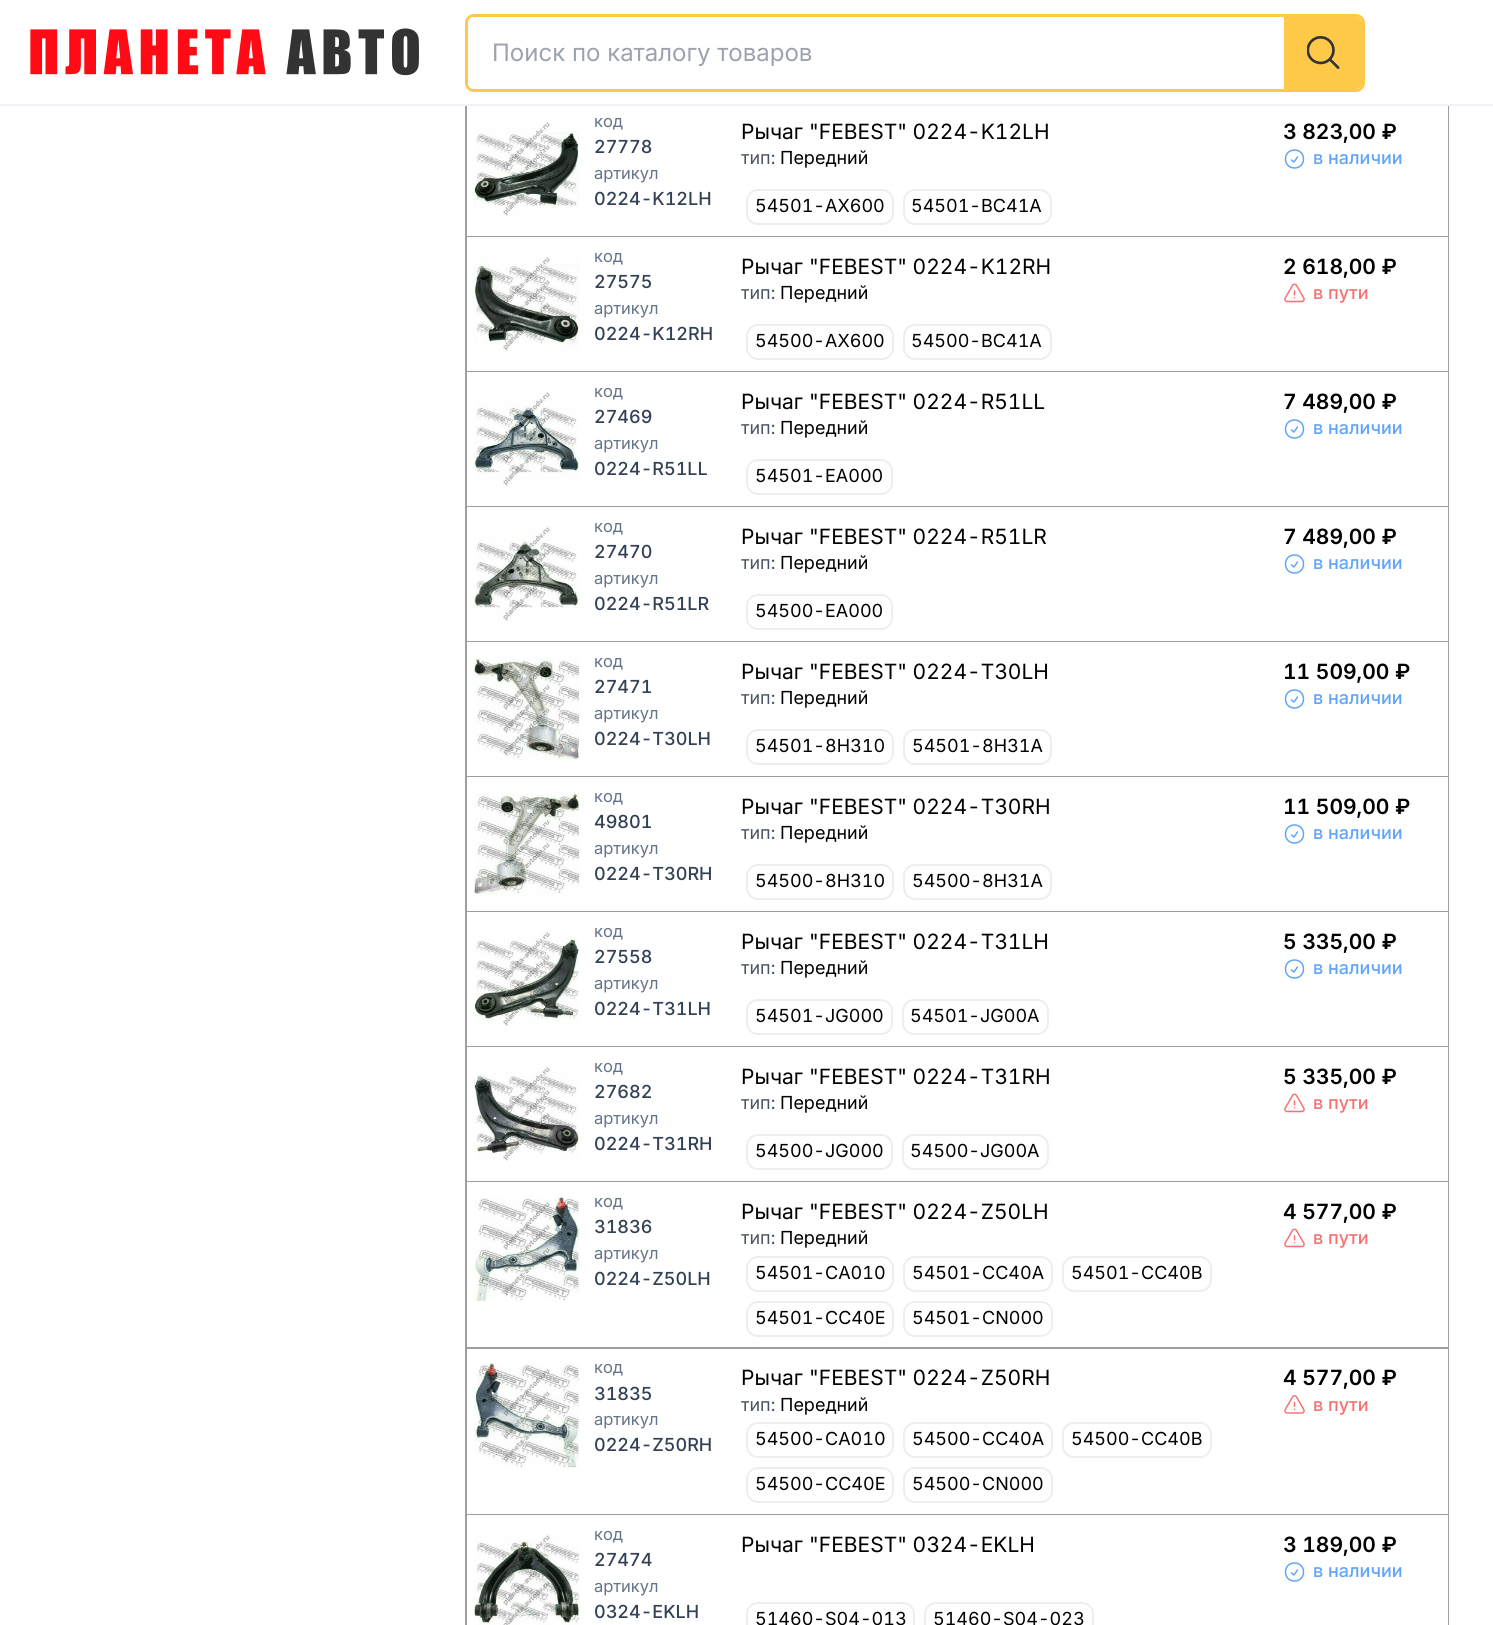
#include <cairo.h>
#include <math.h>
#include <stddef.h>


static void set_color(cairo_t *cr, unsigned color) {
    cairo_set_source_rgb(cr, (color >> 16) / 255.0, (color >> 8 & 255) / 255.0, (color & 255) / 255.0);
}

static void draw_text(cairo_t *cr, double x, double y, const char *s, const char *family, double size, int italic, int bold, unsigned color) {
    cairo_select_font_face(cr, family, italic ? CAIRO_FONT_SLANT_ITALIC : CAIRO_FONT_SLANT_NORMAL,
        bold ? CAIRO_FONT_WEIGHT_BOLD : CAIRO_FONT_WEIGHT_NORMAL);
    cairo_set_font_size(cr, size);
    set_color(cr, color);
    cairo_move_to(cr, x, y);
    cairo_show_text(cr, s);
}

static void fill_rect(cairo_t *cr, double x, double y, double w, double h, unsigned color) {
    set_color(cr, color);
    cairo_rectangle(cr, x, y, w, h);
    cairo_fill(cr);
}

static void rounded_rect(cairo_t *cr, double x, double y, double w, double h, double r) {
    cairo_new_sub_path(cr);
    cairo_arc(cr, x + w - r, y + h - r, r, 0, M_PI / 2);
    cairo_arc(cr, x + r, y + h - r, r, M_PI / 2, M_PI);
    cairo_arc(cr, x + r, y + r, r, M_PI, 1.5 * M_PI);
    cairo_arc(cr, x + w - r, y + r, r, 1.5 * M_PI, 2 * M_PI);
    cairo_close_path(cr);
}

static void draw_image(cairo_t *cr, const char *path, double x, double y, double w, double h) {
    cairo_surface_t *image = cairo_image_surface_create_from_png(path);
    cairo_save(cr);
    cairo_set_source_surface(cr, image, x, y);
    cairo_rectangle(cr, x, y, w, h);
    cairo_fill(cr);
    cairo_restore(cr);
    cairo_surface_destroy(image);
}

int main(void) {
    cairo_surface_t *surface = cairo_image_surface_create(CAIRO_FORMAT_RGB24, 1493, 1625);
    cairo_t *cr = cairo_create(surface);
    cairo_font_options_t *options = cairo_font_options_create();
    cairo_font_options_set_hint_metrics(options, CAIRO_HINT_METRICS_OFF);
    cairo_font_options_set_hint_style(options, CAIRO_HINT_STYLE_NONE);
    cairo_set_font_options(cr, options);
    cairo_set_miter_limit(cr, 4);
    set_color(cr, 0xFFFFFF);
    cairo_paint(cr);
    cairo_rectangle(cr, 466, 102, 982, 136);
    set_color(cr, 0x9E9E9E);
    cairo_stroke(cr);
    fill_rect(cr, 465, 101, 984, 3, 0xFFFFFF);
    fill_rect(cr, 0, 104, 1493, 2, 0xEEF2F7);
    draw_image(cr, "assets/img1.png", 30, 28, 389, 48);
    rounded_rect(cr, 466.5, 15.5, 897, 75, 7.5);
    set_color(cr, 0xFEC949);
    cairo_set_line_width(cr, 3);
    cairo_stroke(cr);
    set_color(cr, 0xFFFFFF);
    rounded_rect(cr, 468, 17, 894, 72, 6);
    cairo_fill(cr);
    draw_text(cr, 492, 61, "Поиск по каталогу товаров", "Inter", 24, 0, 0, 0x9CA3AF);
    set_color(cr, 0xFEC949);
    cairo_new_path(cr);
    cairo_move_to(cr, 1284, 17);
    cairo_line_to(cr, 1356, 17);
    cairo_curve_to(cr, 1359.5, 17, 1362, 19.5, 1362, 23);
    cairo_line_to(cr, 1362, 83);
    cairo_curve_to(cr, 1362, 86.5, 1359.5, 89, 1356, 89);
    cairo_line_to(cr, 1284, 89);
    cairo_close_path(cr);
    cairo_fill(cr);
    draw_image(cr, "assets/img2.png", 1307, 36, 33, 33);
    fill_rect(cr, 1447, 106, 1, 130, 0xFFFFFF);
    draw_image(cr, "assets/img3.png", 474, 121, 105, 95);
    draw_text(cr, 594, 127, "код", "Inter", 16.5, 0, 0, 0x64748B);
    draw_text(cr, 594, 153, "27778", "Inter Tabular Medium", 18, 0, 0, 0x334155);
    draw_text(cr, 594, 179, "артикул", "Inter", 16.5, 0, 0, 0x64748B);
    draw_text(cr, 594, 205, "0224-K12LH", "Inter Tabular Medium", 18, 0, 0, 0x334155);
    draw_text(cr, 741, 139, "Рычаг", "Inter", 21, 0, 0, 0x000000);
    draw_text(cr, 809, 139, "\"FEBEST\" 0224-K12LH", "Inter Tabular", 21, 0, 0, 0x000000);
    draw_text(cr, 741, 164, "тип:", "Inter", 18, 0, 0, 0x4B5563);
    draw_text(cr, 780, 164, "Передний", "Inter", 18, 0, 0, 0x000000);
    rounded_rect(cr, 747, 190, 146, 34, 11);
    set_color(cr, 0xEEEEEE);
    cairo_set_line_width(cr, 2);
    cairo_stroke(cr);
    draw_text(cr, 755, 212, "54501-AX600", "Inter Tabular", 18, 0, 0, 0x000000);
    rounded_rect(cr, 904, 190, 147, 34, 11);
    set_color(cr, 0xEEEEEE);
    cairo_stroke(cr);
    draw_text(cr, 911, 212, "54501-BC41A", "Inter Tabular", 18, 0, 0, 0x000000);
    draw_text(cr, 1283, 139, "3 823,00 ₽", "Inter Tabular SemiBold", 21, 0, 0, 0x000000);
    cairo_new_path(cr);
    cairo_move_to(cr, 1291.5, 160);
    cairo_line_to(cr, 1294, 162);
    cairo_line_to(cr, 1297.5, 157);
    cairo_move_to(cr, 1303.5, 159);
    cairo_curve_to(cr, 1303.5, 171, 1285.5, 171, 1285.5, 159);
    cairo_curve_to(cr, 1285.5, 147, 1303.5, 147, 1303.5, 159);
    cairo_close_path(cr);
    set_color(cr, 0x60A5FA);
    cairo_set_line_width(cr, 1.5);
    cairo_set_line_cap(cr, CAIRO_LINE_CAP_ROUND);
    cairo_set_line_join(cr, CAIRO_LINE_JOIN_ROUND);
    cairo_stroke(cr);
    draw_text(cr, 1313, 164, "в наличии", "Inter Medium", 18, 0, 0, 0x60A5FA);
    cairo_rectangle(cr, 466, 237, 982, 136);
    set_color(cr, 0x9E9E9E);
    cairo_set_line_width(cr, 2);
    cairo_set_line_cap(cr, CAIRO_LINE_CAP_BUTT);
    cairo_set_line_join(cr, CAIRO_LINE_JOIN_MITER);
    cairo_stroke(cr);
    fill_rect(cr, 467, 237, 981, 134, 0xFFFFFF);
    draw_image(cr, "assets/img4.png", 474, 256, 105, 95);
    draw_text(cr, 594, 262, "код", "Inter", 16.5, 0, 0, 0x64748B);
    draw_text(cr, 594, 288, "27575", "Inter Tabular Medium", 18, 0, 0, 0x334155);
    draw_text(cr, 594, 314, "артикул", "Inter", 16.5, 0, 0, 0x64748B);
    draw_text(cr, 594, 340, "0224-K12RH", "Inter Tabular Medium", 18, 0, 0, 0x334155);
    draw_text(cr, 741, 274, "Рычаг", "Inter", 21, 0, 0, 0x000000);
    draw_text(cr, 809, 274, "\"FEBEST\" 0224-K12RH", "Inter Tabular", 21, 0, 0, 0x000000);
    draw_text(cr, 741, 299, "тип:", "Inter", 18, 0, 0, 0x4B5563);
    draw_text(cr, 780, 299, "Передний", "Inter", 18, 0, 0, 0x000000);
    rounded_rect(cr, 747, 325, 146, 34, 11);
    set_color(cr, 0xEEEEEE);
    cairo_stroke(cr);
    draw_text(cr, 755, 347, "54500-AX600", "Inter Tabular", 18, 0, 0, 0x000000);
    rounded_rect(cr, 904, 325, 147, 34, 11);
    set_color(cr, 0xEEEEEE);
    cairo_stroke(cr);
    draw_text(cr, 911, 347, "54500-BC41A", "Inter Tabular", 18, 0, 0, 0x000000);
    draw_text(cr, 1283, 274, "2 618,00 ₽", "Inter Tabular SemiBold", 21, 0, 0, 0x000000);
    draw_image(cr, "assets/img5.png", 1284, 283, 21, 20);
    draw_text(cr, 1313, 299, "в пути", "Inter Medium", 18, 0, 0, 0xF87171);
    cairo_rectangle(cr, 466, 372, 982, 136);
    set_color(cr, 0x9E9E9E);
    cairo_stroke(cr);
    fill_rect(cr, 467, 372, 981, 134, 0xFFFFFF);
    draw_image(cr, "assets/img6.png", 474, 391, 105, 95);
    draw_text(cr, 594, 397, "код", "Inter", 16.5, 0, 0, 0x64748B);
    draw_text(cr, 594, 423, "27469", "Inter Tabular Medium", 18, 0, 0, 0x334155);
    draw_text(cr, 594, 449, "артикул", "Inter", 16.5, 0, 0, 0x64748B);
    draw_text(cr, 594, 475, "0224-R51LL", "Inter Tabular Medium", 18, 0, 0, 0x334155);
    draw_text(cr, 741, 409, "Рычаг", "Inter", 21, 0, 0, 0x000000);
    draw_text(cr, 809, 409, "\"FEBEST\" 0224-R51LL", "Inter Tabular", 21, 0, 0, 0x000000);
    draw_text(cr, 741, 434, "тип:", "Inter", 18, 0, 0, 0x4B5563);
    draw_text(cr, 780, 434, "Передний", "Inter", 18, 0, 0, 0x000000);
    rounded_rect(cr, 747, 460, 145, 34, 11);
    set_color(cr, 0xEEEEEE);
    cairo_stroke(cr);
    draw_text(cr, 755, 482, "54501-EA000", "Inter Tabular", 18, 0, 0, 0x000000);
    draw_text(cr, 1283, 409, "7 489,00 ₽", "Inter Tabular SemiBold", 21, 0, 0, 0x000000);
    cairo_new_path(cr);
    cairo_move_to(cr, 1291.5, 430);
    cairo_line_to(cr, 1294, 432);
    cairo_line_to(cr, 1297.5, 427);
    cairo_move_to(cr, 1303.5, 429);
    cairo_curve_to(cr, 1303.5, 441, 1285.5, 441, 1285.5, 429);
    cairo_curve_to(cr, 1285.5, 417, 1303.5, 417, 1303.5, 429);
    cairo_close_path(cr);
    set_color(cr, 0x60A5FA);
    cairo_set_line_width(cr, 1.5);
    cairo_set_line_cap(cr, CAIRO_LINE_CAP_ROUND);
    cairo_set_line_join(cr, CAIRO_LINE_JOIN_ROUND);
    cairo_stroke(cr);
    draw_text(cr, 1313, 434, "в наличии", "Inter Medium", 18, 0, 0, 0x60A5FA);
    cairo_rectangle(cr, 466, 507, 982, 136);
    set_color(cr, 0x9E9E9E);
    cairo_set_line_width(cr, 2);
    cairo_set_line_cap(cr, CAIRO_LINE_CAP_BUTT);
    cairo_set_line_join(cr, CAIRO_LINE_JOIN_MITER);
    cairo_stroke(cr);
    fill_rect(cr, 467, 507, 981, 134, 0xFFFFFF);
    draw_image(cr, "assets/img7.png", 474, 526, 105, 95);
    draw_text(cr, 594, 532, "код", "Inter", 16.5, 0, 0, 0x64748B);
    draw_text(cr, 594, 558, "27470", "Inter Tabular Medium", 18, 0, 0, 0x334155);
    draw_text(cr, 594, 584, "артикул", "Inter", 16.5, 0, 0, 0x64748B);
    draw_text(cr, 594, 610, "0224-R51LR", "Inter Tabular Medium", 18, 0, 0, 0x334155);
    draw_text(cr, 741, 544, "Рычаг", "Inter", 21, 0, 0, 0x000000);
    draw_text(cr, 809, 544, "\"FEBEST\" 0224-R51LR", "Inter Tabular", 21, 0, 0, 0x000000);
    draw_text(cr, 741, 569, "тип:", "Inter", 18, 0, 0, 0x4B5563);
    draw_text(cr, 780, 569, "Передний", "Inter", 18, 0, 0, 0x000000);
    rounded_rect(cr, 747, 595, 145, 34, 11);
    set_color(cr, 0xEEEEEE);
    cairo_stroke(cr);
    draw_text(cr, 755, 617, "54500-EA000", "Inter Tabular", 18, 0, 0, 0x000000);
    draw_text(cr, 1283, 544, "7 489,00 ₽", "Inter Tabular SemiBold", 21, 0, 0, 0x000000);
    cairo_new_path(cr);
    cairo_move_to(cr, 1291.5, 565);
    cairo_line_to(cr, 1294, 567);
    cairo_line_to(cr, 1297.5, 562);
    cairo_move_to(cr, 1303.5, 564);
    cairo_curve_to(cr, 1303.5, 576, 1285.5, 576, 1285.5, 564);
    cairo_curve_to(cr, 1285.5, 552, 1303.5, 552, 1303.5, 564);
    cairo_close_path(cr);
    set_color(cr, 0x60A5FA);
    cairo_set_line_width(cr, 1.5);
    cairo_set_line_cap(cr, CAIRO_LINE_CAP_ROUND);
    cairo_set_line_join(cr, CAIRO_LINE_JOIN_ROUND);
    cairo_stroke(cr);
    draw_text(cr, 1313, 569, "в наличии", "Inter Medium", 18, 0, 0, 0x60A5FA);
    cairo_rectangle(cr, 466, 642, 982, 136);
    set_color(cr, 0x9E9E9E);
    cairo_set_line_width(cr, 2);
    cairo_set_line_cap(cr, CAIRO_LINE_CAP_BUTT);
    cairo_set_line_join(cr, CAIRO_LINE_JOIN_MITER);
    cairo_stroke(cr);
    fill_rect(cr, 467, 642, 981, 134, 0xFFFFFF);
    draw_image(cr, "assets/img8.png", 474, 657, 105, 104);
    draw_text(cr, 594, 667, "код", "Inter", 16.5, 0, 0, 0x64748B);
    draw_text(cr, 594, 693, "27471", "Inter Tabular Medium", 18, 0, 0, 0x334155);
    draw_text(cr, 594, 719, "артикул", "Inter", 16.5, 0, 0, 0x64748B);
    draw_text(cr, 594, 745, "0224-T30LH", "Inter Tabular Medium", 18, 0, 0, 0x334155);
    draw_text(cr, 741, 679, "Рычаг", "Inter", 21, 0, 0, 0x000000);
    draw_text(cr, 809, 679, "\"FEBEST\" 0224-T30LH", "Inter Tabular", 21, 0, 0, 0x000000);
    draw_text(cr, 741, 704, "тип:", "Inter", 18, 0, 0, 0x4B5563);
    draw_text(cr, 780, 704, "Передний", "Inter", 18, 0, 0, 0x000000);
    rounded_rect(cr, 747, 730, 146, 34, 11);
    set_color(cr, 0xEEEEEE);
    cairo_stroke(cr);
    draw_text(cr, 755, 752, "54501-8H310", "Inter Tabular", 18, 0, 0, 0x000000);
    rounded_rect(cr, 904, 730, 147, 34, 11);
    set_color(cr, 0xEEEEEE);
    cairo_stroke(cr);
    draw_text(cr, 912, 752, "54501-8H31A", "Inter Tabular", 18, 0, 0, 0x000000);
    draw_text(cr, 1283, 679, "11 509,00 ₽", "Inter Tabular SemiBold", 21, 0, 0, 0x000000);
    cairo_new_path(cr);
    cairo_move_to(cr, 1291.5, 700);
    cairo_line_to(cr, 1294, 702);
    cairo_line_to(cr, 1297.5, 697);
    cairo_move_to(cr, 1303.5, 699);
    cairo_curve_to(cr, 1303.5, 711, 1285.5, 711, 1285.5, 699);
    cairo_curve_to(cr, 1285.5, 687, 1303.5, 687, 1303.5, 699);
    cairo_close_path(cr);
    set_color(cr, 0x60A5FA);
    cairo_set_line_width(cr, 1.5);
    cairo_set_line_cap(cr, CAIRO_LINE_CAP_ROUND);
    cairo_set_line_join(cr, CAIRO_LINE_JOIN_ROUND);
    cairo_stroke(cr);
    draw_text(cr, 1313, 704, "в наличии", "Inter Medium", 18, 0, 0, 0x60A5FA);
    cairo_rectangle(cr, 466, 777, 982, 136);
    set_color(cr, 0x9E9E9E);
    cairo_set_line_width(cr, 2);
    cairo_set_line_cap(cr, CAIRO_LINE_CAP_BUTT);
    cairo_set_line_join(cr, CAIRO_LINE_JOIN_MITER);
    cairo_stroke(cr);
    fill_rect(cr, 467, 777, 981, 134, 0xFFFFFF);
    draw_image(cr, "assets/img9.png", 474, 792, 105, 104);
    draw_text(cr, 594, 802, "код", "Inter", 16.5, 0, 0, 0x64748B);
    draw_text(cr, 594, 828, "49801", "Inter Tabular Medium", 18, 0, 0, 0x334155);
    draw_text(cr, 594, 854, "артикул", "Inter", 16.5, 0, 0, 0x64748B);
    draw_text(cr, 594, 880, "0224-T30RH", "Inter Tabular Medium", 18, 0, 0, 0x334155);
    draw_text(cr, 741, 814, "Рычаг", "Inter", 21, 0, 0, 0x000000);
    draw_text(cr, 809, 814, "\"FEBEST\" 0224-T30RH", "Inter Tabular", 21, 0, 0, 0x000000);
    draw_text(cr, 741, 839, "тип:", "Inter", 18, 0, 0, 0x4B5563);
    draw_text(cr, 780, 839, "Передний", "Inter", 18, 0, 0, 0x000000);
    rounded_rect(cr, 747, 865, 146, 34, 11);
    set_color(cr, 0xEEEEEE);
    cairo_stroke(cr);
    draw_text(cr, 755, 887, "54500-8H310", "Inter Tabular", 18, 0, 0, 0x000000);
    rounded_rect(cr, 904, 865, 147, 34, 11);
    set_color(cr, 0xEEEEEE);
    cairo_stroke(cr);
    draw_text(cr, 912, 887, "54500-8H31A", "Inter Tabular", 18, 0, 0, 0x000000);
    draw_text(cr, 1283, 814, "11 509,00 ₽", "Inter Tabular SemiBold", 21, 0, 0, 0x000000);
    cairo_new_path(cr);
    cairo_move_to(cr, 1291.5, 835);
    cairo_line_to(cr, 1294, 837);
    cairo_line_to(cr, 1297.5, 832);
    cairo_move_to(cr, 1303.5, 834);
    cairo_curve_to(cr, 1303.5, 846, 1285.5, 846, 1285.5, 834);
    cairo_curve_to(cr, 1285.5, 822, 1303.5, 822, 1303.5, 834);
    cairo_close_path(cr);
    set_color(cr, 0x60A5FA);
    cairo_set_line_width(cr, 1.5);
    cairo_set_line_cap(cr, CAIRO_LINE_CAP_ROUND);
    cairo_set_line_join(cr, CAIRO_LINE_JOIN_ROUND);
    cairo_stroke(cr);
    draw_text(cr, 1313, 839, "в наличии", "Inter Medium", 18, 0, 0, 0x60A5FA);
    cairo_rectangle(cr, 466, 912, 982, 136);
    set_color(cr, 0x9E9E9E);
    cairo_set_line_width(cr, 2);
    cairo_set_line_cap(cr, CAIRO_LINE_CAP_BUTT);
    cairo_set_line_join(cr, CAIRO_LINE_JOIN_MITER);
    cairo_stroke(cr);
    fill_rect(cr, 467, 912, 981, 134, 0xFFFFFF);
    draw_image(cr, "assets/img10.png", 474, 931, 105, 95);
    draw_text(cr, 594, 937, "код", "Inter", 16.5, 0, 0, 0x64748B);
    draw_text(cr, 594, 963, "27558", "Inter Tabular Medium", 18, 0, 0, 0x334155);
    draw_text(cr, 594, 989, "артикул", "Inter", 16.5, 0, 0, 0x64748B);
    draw_text(cr, 594, 1015, "0224-T31LH", "Inter Tabular Medium", 18, 0, 0, 0x334155);
    draw_text(cr, 741, 949, "Рычаг", "Inter", 21, 0, 0, 0x000000);
    draw_text(cr, 809, 949, "\"FEBEST\" 0224-T31LH", "Inter Tabular", 21, 0, 0, 0x000000);
    draw_text(cr, 741, 974, "тип:", "Inter", 18, 0, 0, 0x4B5563);
    draw_text(cr, 780, 974, "Передний", "Inter", 18, 0, 0, 0x000000);
    rounded_rect(cr, 747, 1000, 145, 34, 11);
    set_color(cr, 0xEEEEEE);
    cairo_stroke(cr);
    draw_text(cr, 755, 1022, "54501-JG000", "Inter Tabular", 18, 0, 0, 0x000000);
    rounded_rect(cr, 903, 1000, 145, 34, 11);
    set_color(cr, 0xEEEEEE);
    cairo_stroke(cr);
    draw_text(cr, 910, 1022, "54501-JG00A", "Inter Tabular", 18, 0, 0, 0x000000);
    draw_text(cr, 1283, 949, "5 335,00 ₽", "Inter Tabular SemiBold", 21, 0, 0, 0x000000);
    cairo_new_path(cr);
    cairo_move_to(cr, 1291.5, 970);
    cairo_line_to(cr, 1294, 972);
    cairo_line_to(cr, 1297.5, 967);
    cairo_move_to(cr, 1303.5, 969);
    cairo_curve_to(cr, 1303.5, 981, 1285.5, 981, 1285.5, 969);
    cairo_curve_to(cr, 1285.5, 957, 1303.5, 957, 1303.5, 969);
    cairo_close_path(cr);
    set_color(cr, 0x60A5FA);
    cairo_set_line_width(cr, 1.5);
    cairo_set_line_cap(cr, CAIRO_LINE_CAP_ROUND);
    cairo_set_line_join(cr, CAIRO_LINE_JOIN_ROUND);
    cairo_stroke(cr);
    draw_text(cr, 1313, 974, "в наличии", "Inter Medium", 18, 0, 0, 0x60A5FA);
    cairo_rectangle(cr, 466, 1047, 982, 136);
    set_color(cr, 0x9E9E9E);
    cairo_set_line_width(cr, 2);
    cairo_set_line_cap(cr, CAIRO_LINE_CAP_BUTT);
    cairo_set_line_join(cr, CAIRO_LINE_JOIN_MITER);
    cairo_stroke(cr);
    fill_rect(cr, 467, 1047, 981, 134, 0xFFFFFF);
    draw_image(cr, "assets/img11.png", 474, 1067, 105, 94);
    draw_text(cr, 594, 1072, "код", "Inter", 16.5, 0, 0, 0x64748B);
    draw_text(cr, 594, 1098, "27682", "Inter Tabular Medium", 18, 0, 0, 0x334155);
    draw_text(cr, 594, 1124, "артикул", "Inter", 16.5, 0, 0, 0x64748B);
    draw_text(cr, 594, 1150, "0224-T31RH", "Inter Tabular Medium", 18, 0, 0, 0x334155);
    draw_text(cr, 741, 1084, "Рычаг", "Inter", 21, 0, 0, 0x000000);
    draw_text(cr, 809, 1084, "\"FEBEST\" 0224-T31RH", "Inter Tabular", 21, 0, 0, 0x000000);
    draw_text(cr, 741, 1109, "тип:", "Inter", 18, 0, 0, 0x4B5563);
    draw_text(cr, 780, 1109, "Передний", "Inter", 18, 0, 0, 0x000000);
    rounded_rect(cr, 747, 1135, 145, 34, 11);
    set_color(cr, 0xEEEEEE);
    cairo_stroke(cr);
    draw_text(cr, 755, 1157, "54500-JG000", "Inter Tabular", 18, 0, 0, 0x000000);
    rounded_rect(cr, 903, 1135, 145, 34, 11);
    set_color(cr, 0xEEEEEE);
    cairo_stroke(cr);
    draw_text(cr, 910, 1157, "54500-JG00A", "Inter Tabular", 18, 0, 0, 0x000000);
    draw_text(cr, 1283, 1084, "5 335,00 ₽", "Inter Tabular SemiBold", 21, 0, 0, 0x000000);
    draw_image(cr, "assets/img5.png", 1284, 1093, 21, 20);
    draw_text(cr, 1313, 1109, "в пути", "Inter Medium", 18, 0, 0, 0xF87171);
    cairo_rectangle(cr, 466, 1182, 982, 167);
    set_color(cr, 0x9E9E9E);
    cairo_stroke(cr);
    fill_rect(cr, 467, 1182, 981, 165, 0xFFFFFF);
    draw_image(cr, "assets/img12.png", 474, 1196, 105, 106);
    draw_text(cr, 594, 1207, "код", "Inter", 16.5, 0, 0, 0x64748B);
    draw_text(cr, 594, 1233, "31836", "Inter Tabular Medium", 18, 0, 0, 0x334155);
    draw_text(cr, 594, 1259, "артикул", "Inter", 16.5, 0, 0, 0x64748B);
    draw_text(cr, 594, 1285, "0224-Z50LH", "Inter Tabular Medium", 18, 0, 0, 0x334155);
    draw_text(cr, 741, 1219, "Рычаг", "Inter", 21, 0, 0, 0x000000);
    draw_text(cr, 809, 1219, "\"FEBEST\" 0224-Z50LH", "Inter Tabular", 21, 0, 0, 0x000000);
    draw_text(cr, 741, 1244, "тип:", "Inter", 18, 0, 0, 0x4B5563);
    draw_text(cr, 780, 1244, "Передний", "Inter", 18, 0, 0, 0x000000);
    rounded_rect(cr, 747, 1257, 146, 34, 11);
    set_color(cr, 0xEEEEEE);
    cairo_stroke(cr);
    draw_text(cr, 755, 1279, "54501-CA010", "Inter Tabular", 18, 0, 0, 0x000000);
    rounded_rect(cr, 904, 1257, 148, 34, 11);
    set_color(cr, 0xEEEEEE);
    cairo_stroke(cr);
    draw_text(cr, 912, 1279, "54501-CC40A", "Inter Tabular", 18, 0, 0, 0x000000);
    rounded_rect(cr, 1063, 1257, 148, 34, 11);
    set_color(cr, 0xEEEEEE);
    cairo_stroke(cr);
    draw_text(cr, 1071, 1279, "54501-CC40B", "Inter Tabular", 18, 0, 0, 0x000000);
    rounded_rect(cr, 747, 1302, 146, 34, 11);
    set_color(cr, 0xEEEEEE);
    cairo_stroke(cr);
    draw_text(cr, 755, 1324, "54501-CC40E", "Inter Tabular", 18, 0, 0, 0x000000);
    rounded_rect(cr, 904, 1302, 148, 34, 11);
    set_color(cr, 0xEEEEEE);
    cairo_stroke(cr);
    draw_text(cr, 912, 1324, "54501-CN000", "Inter Tabular", 18, 0, 0, 0x000000);
    draw_text(cr, 1283, 1219, "4 577,00 ₽", "Inter Tabular SemiBold", 21, 0, 0, 0x000000);
    draw_image(cr, "assets/img5.png", 1284, 1228, 21, 20);
    draw_text(cr, 1313, 1244, "в пути", "Inter Medium", 18, 0, 0, 0xF87171);
    cairo_rectangle(cr, 466, 1348, 982, 168);
    set_color(cr, 0x9E9E9E);
    cairo_stroke(cr);
    fill_rect(cr, 467, 1349, 981, 165, 0xFFFFFF);
    draw_image(cr, "assets/img13.png", 474, 1363, 105, 105);
    draw_text(cr, 594, 1373, "код", "Inter", 16.5, 0, 0, 0x64748B);
    draw_text(cr, 594, 1400, "31835", "Inter Tabular Medium", 18, 0, 0, 0x334155);
    draw_text(cr, 594, 1425, "артикул", "Inter", 16.5, 0, 0, 0x64748B);
    draw_text(cr, 594, 1451, "0224-Z50RH", "Inter Tabular Medium", 18, 0, 0, 0x334155);
    draw_text(cr, 741, 1385, "Рычаг", "Inter", 21, 0, 0, 0x000000);
    draw_text(cr, 809, 1385, "\"FEBEST\" 0224-Z50RH", "Inter Tabular", 21, 0, 0, 0x000000);
    draw_text(cr, 741, 1411, "тип:", "Inter", 18, 0, 0, 0x4B5563);
    draw_text(cr, 780, 1411, "Передний", "Inter", 18, 0, 0, 0x000000);
    rounded_rect(cr, 747, 1423, 146, 34, 11);
    set_color(cr, 0xEEEEEE);
    cairo_stroke(cr);
    draw_text(cr, 755, 1445, "54500-CA010", "Inter Tabular", 18, 0, 0, 0x000000);
    rounded_rect(cr, 904, 1423, 148, 34, 11);
    set_color(cr, 0xEEEEEE);
    cairo_stroke(cr);
    draw_text(cr, 912, 1445, "54500-CC40A", "Inter Tabular", 18, 0, 0, 0x000000);
    rounded_rect(cr, 1063, 1423, 148, 34, 11);
    set_color(cr, 0xEEEEEE);
    cairo_stroke(cr);
    draw_text(cr, 1071, 1445, "54500-CC40B", "Inter Tabular", 18, 0, 0, 0x000000);
    rounded_rect(cr, 747, 1468, 146, 34, 11);
    set_color(cr, 0xEEEEEE);
    cairo_stroke(cr);
    draw_text(cr, 755, 1490, "54500-CC40E", "Inter Tabular", 18, 0, 0, 0x000000);
    rounded_rect(cr, 904, 1468, 148, 34, 11);
    set_color(cr, 0xEEEEEE);
    cairo_stroke(cr);
    draw_text(cr, 912, 1490, "54500-CN000", "Inter Tabular", 18, 0, 0, 0x000000);
    draw_text(cr, 1283, 1385, "4 577,00 ₽", "Inter Tabular SemiBold", 21, 0, 0, 0x000000);
    draw_image(cr, "assets/img14.png", 1284, 1395, 21, 19);
    draw_text(cr, 1313, 1411, "в пути", "Inter Medium", 18, 0, 0, 0xF87171);
    cairo_rectangle(cr, 466, 1515, 982, 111);
    set_color(cr, 0x9E9E9E);
    cairo_stroke(cr);
    fill_rect(cr, 467, 1515, 981, 110, 0xFFFFFF);
    draw_image(cr, "assets/img15.png", 474, 1534, 105, 91);
    draw_text(cr, 594, 1540, "код", "Inter", 16.5, 0, 0, 0x64748B);
    draw_text(cr, 594, 1566, "27474", "Inter Tabular Medium", 18, 0, 0, 0x334155);
    draw_text(cr, 594, 1592, "артикул", "Inter", 16.5, 0, 0, 0x64748B);
    draw_text(cr, 594, 1618, "0324-EKLH", "Inter Tabular Medium", 18, 0, 0, 0x334155);
    draw_text(cr, 741, 1552, "Рычаг", "Inter", 21, 0, 0, 0x000000);
    draw_text(cr, 809, 1552, "\"FEBEST\" 0324-EKLH", "Inter Tabular", 21, 0, 0, 0x000000);
    rounded_rect(cr, 747, 1603, 167, 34, 11);
    set_color(cr, 0xEEEEEE);
    cairo_stroke(cr);
    draw_text(cr, 755, 1625, "51460-S04-013", "Inter Tabular", 18, 0, 0, 0x000000);
    rounded_rect(cr, 925, 1603, 168, 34, 11);
    set_color(cr, 0xEEEEEE);
    cairo_stroke(cr);
    draw_text(cr, 933, 1625, "51460-S04-023", "Inter Tabular", 18, 0, 0, 0x000000);
    draw_text(cr, 1283, 1552, "3 189,00 ₽", "Inter Tabular SemiBold", 21, 0, 0, 0x000000);
    cairo_new_path(cr);
    cairo_move_to(cr, 1291.5, 1573);
    cairo_line_to(cr, 1294, 1575);
    cairo_line_to(cr, 1297.5, 1570);
    cairo_move_to(cr, 1303.5, 1572);
    cairo_curve_to(cr, 1303.5, 1584, 1285.5, 1584, 1285.5, 1572);
    cairo_curve_to(cr, 1285.5, 1560, 1303.5, 1560, 1303.5, 1572);
    cairo_close_path(cr);
    set_color(cr, 0x60A5FA);
    cairo_set_line_width(cr, 1.5);
    cairo_set_line_cap(cr, CAIRO_LINE_CAP_ROUND);
    cairo_set_line_join(cr, CAIRO_LINE_JOIN_ROUND);
    cairo_stroke(cr);
    draw_text(cr, 1313, 1577, "в наличии", "Inter Medium", 18, 0, 0, 0x60A5FA);
    cairo_surface_write_to_png(surface, "output.png");
    cairo_font_options_destroy(options);
    cairo_destroy(cr);
    cairo_surface_destroy(surface);
    return 0;
}
